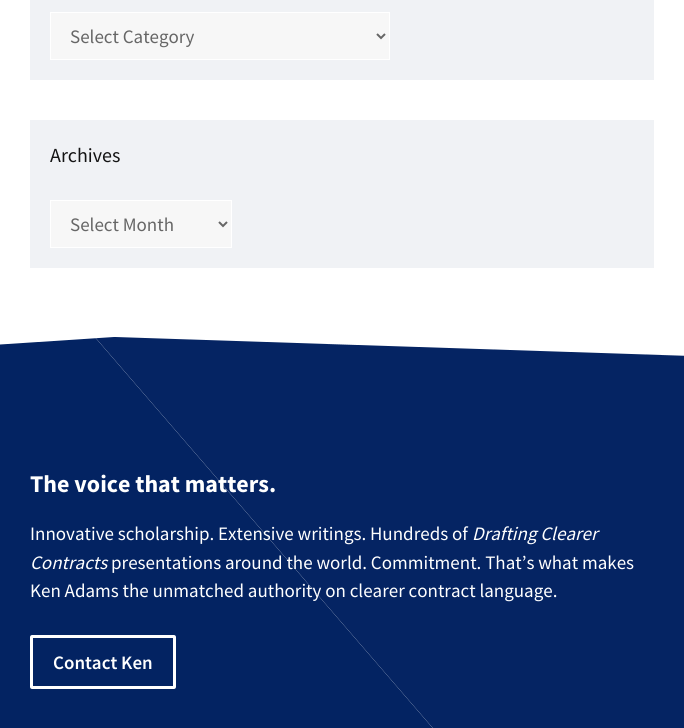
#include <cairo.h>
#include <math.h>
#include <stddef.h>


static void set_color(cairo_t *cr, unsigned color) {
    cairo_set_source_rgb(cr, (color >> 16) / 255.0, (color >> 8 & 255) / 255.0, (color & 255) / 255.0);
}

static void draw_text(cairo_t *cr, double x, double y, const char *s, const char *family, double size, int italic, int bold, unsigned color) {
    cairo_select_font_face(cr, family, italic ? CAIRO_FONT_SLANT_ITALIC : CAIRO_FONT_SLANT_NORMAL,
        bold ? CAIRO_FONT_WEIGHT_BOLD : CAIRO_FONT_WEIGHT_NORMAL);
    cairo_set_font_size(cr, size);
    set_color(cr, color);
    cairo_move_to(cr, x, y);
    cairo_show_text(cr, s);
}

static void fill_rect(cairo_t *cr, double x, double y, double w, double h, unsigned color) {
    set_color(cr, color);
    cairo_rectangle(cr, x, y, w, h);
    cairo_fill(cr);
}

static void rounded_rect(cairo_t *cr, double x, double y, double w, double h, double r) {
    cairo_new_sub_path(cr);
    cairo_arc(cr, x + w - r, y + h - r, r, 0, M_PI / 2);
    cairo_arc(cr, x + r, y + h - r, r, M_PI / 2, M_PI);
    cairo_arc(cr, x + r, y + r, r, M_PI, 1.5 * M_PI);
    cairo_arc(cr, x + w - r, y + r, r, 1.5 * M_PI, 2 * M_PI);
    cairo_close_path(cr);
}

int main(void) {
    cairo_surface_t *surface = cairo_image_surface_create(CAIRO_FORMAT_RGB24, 684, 728);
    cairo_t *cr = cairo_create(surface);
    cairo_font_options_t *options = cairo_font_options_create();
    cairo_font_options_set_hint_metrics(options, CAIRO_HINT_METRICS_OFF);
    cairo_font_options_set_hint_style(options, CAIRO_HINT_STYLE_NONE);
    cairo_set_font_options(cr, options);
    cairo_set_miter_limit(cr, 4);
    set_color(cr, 0xFFFFFF);
    cairo_paint(cr);
    fill_rect(cr, 30, 0, 624, 80, 0xF0F2F5);
    set_color(cr, 0xF7F7F7);
    cairo_rectangle(cr, 50.5, 12.5, 339, 47);
    cairo_fill_preserve(cr);
    set_color(cr, 0xFFFFFF);
    cairo_set_line_width(cr, 1);
    cairo_stroke(cr);
    cairo_new_path(cr);
    cairo_move_to(cr, 377, 34);
    cairo_line_to(cr, 381, 38);
    cairo_line_to(cr, 385, 34);
    set_color(cr, 0x666666);
    cairo_set_line_width(cr, 2);
    cairo_stroke(cr);
    draw_text(cr, 70, 43, "Select Category", "Source Sans Pro", 19, 0, 0, 0x666666);
    fill_rect(cr, 30, 120, 624, 148, 0xF0F2F5);
    draw_text(cr, 50, 162, "Archives", "Source Sans Pro", 20, 0, 0, 0x141414);
    set_color(cr, 0xF7F7F7);
    cairo_rectangle(cr, 50.5, 200.5, 181, 47);
    cairo_fill_preserve(cr);
    set_color(cr, 0xFFFFFF);
    cairo_set_line_width(cr, 1);
    cairo_stroke(cr);
    cairo_new_path(cr);
    cairo_move_to(cr, 219, 222);
    cairo_line_to(cr, 223, 226);
    cairo_line_to(cr, 227, 222);
    set_color(cr, 0x666666);
    cairo_set_line_width(cr, 2);
    cairo_stroke(cr);
    draw_text(cr, 70, 231, "Select Month", "Source Sans Pro", 19, 0, 0, 0x666666);
    set_color(cr, 0x032362);
    cairo_new_path(cr);
    cairo_move_to(cr, -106, 328);
    cairo_line_to(cr, -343, 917);
    cairo_line_to(cr, 58, 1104);
    cairo_curve_to(cr, 99, 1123, 146, 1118, 183, 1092);
    cairo_line_to(cr, 533, 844);
    cairo_line_to(cr, 87, 328);
    cairo_close_path(cr);
    cairo_fill(cr);
    set_color(cr, 0x052463);
    cairo_new_path(cr);
    cairo_move_to(cr, 87, 328);
    cairo_line_to(cr, 533, 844);
    cairo_line_to(cr, 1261, 328);
    cairo_close_path(cr);
    cairo_fill(cr);
    cairo_save(cr);
    cairo_rectangle(cr, 0, 328, 684, 39);
    cairo_clip(cr);
    set_color(cr, 0xFFFFFF);
    cairo_new_path(cr);
    cairo_move_to(cr, 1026, 327);
    cairo_line_to(cr, -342, 327);
    cairo_line_to(cr, -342, 367);
    cairo_line_to(cr, 114, 337);
    cairo_line_to(cr, 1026, 367);
    cairo_close_path(cr);
    cairo_fill(cr);
    cairo_restore(cr);
    draw_text(cr, 30, 492, "The voice that matters.", "Source Sans Pro", 24, 0, 1, 0xFFFFFF);
    draw_text(cr, 30, 540, "Innovative scholarship. Extensive writings. Hundreds of", "Source Sans Pro", 19, 0, 0, 0xFFFFFF);
    draw_text(cr, 472, 540, "Drafting Clearer", "Source Sans Pro", 19, 1, 0, 0xFFFFFF);
    draw_text(cr, 30, 569, "Contracts", "Source Sans Pro", 19, 1, 0, 0xFFFFFF);
    draw_text(cr, 111, 569, "presentations around the world. Commitment. That’s what makes", "Source Sans Pro", 19, 0, 0, 0xFFFFFF);
    draw_text(cr, 30, 597, "Ken Adams the unmatched authority on clearer contract language.", "Source Sans Pro", 19, 0, 0, 0xFFFFFF);
    rounded_rect(cr, 31.5, 636.5, 143, 51, 0.5);
    cairo_set_line_width(cr, 3);
    cairo_stroke(cr);
    draw_text(cr, 53, 669, "Contact Ken", "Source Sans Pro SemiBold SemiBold", 19, 0, 0, 0xFFFFFF);
    cairo_surface_write_to_png(surface, "output.png");
    cairo_font_options_destroy(options);
    cairo_destroy(cr);
    cairo_surface_destroy(surface);
    return 0;
}
